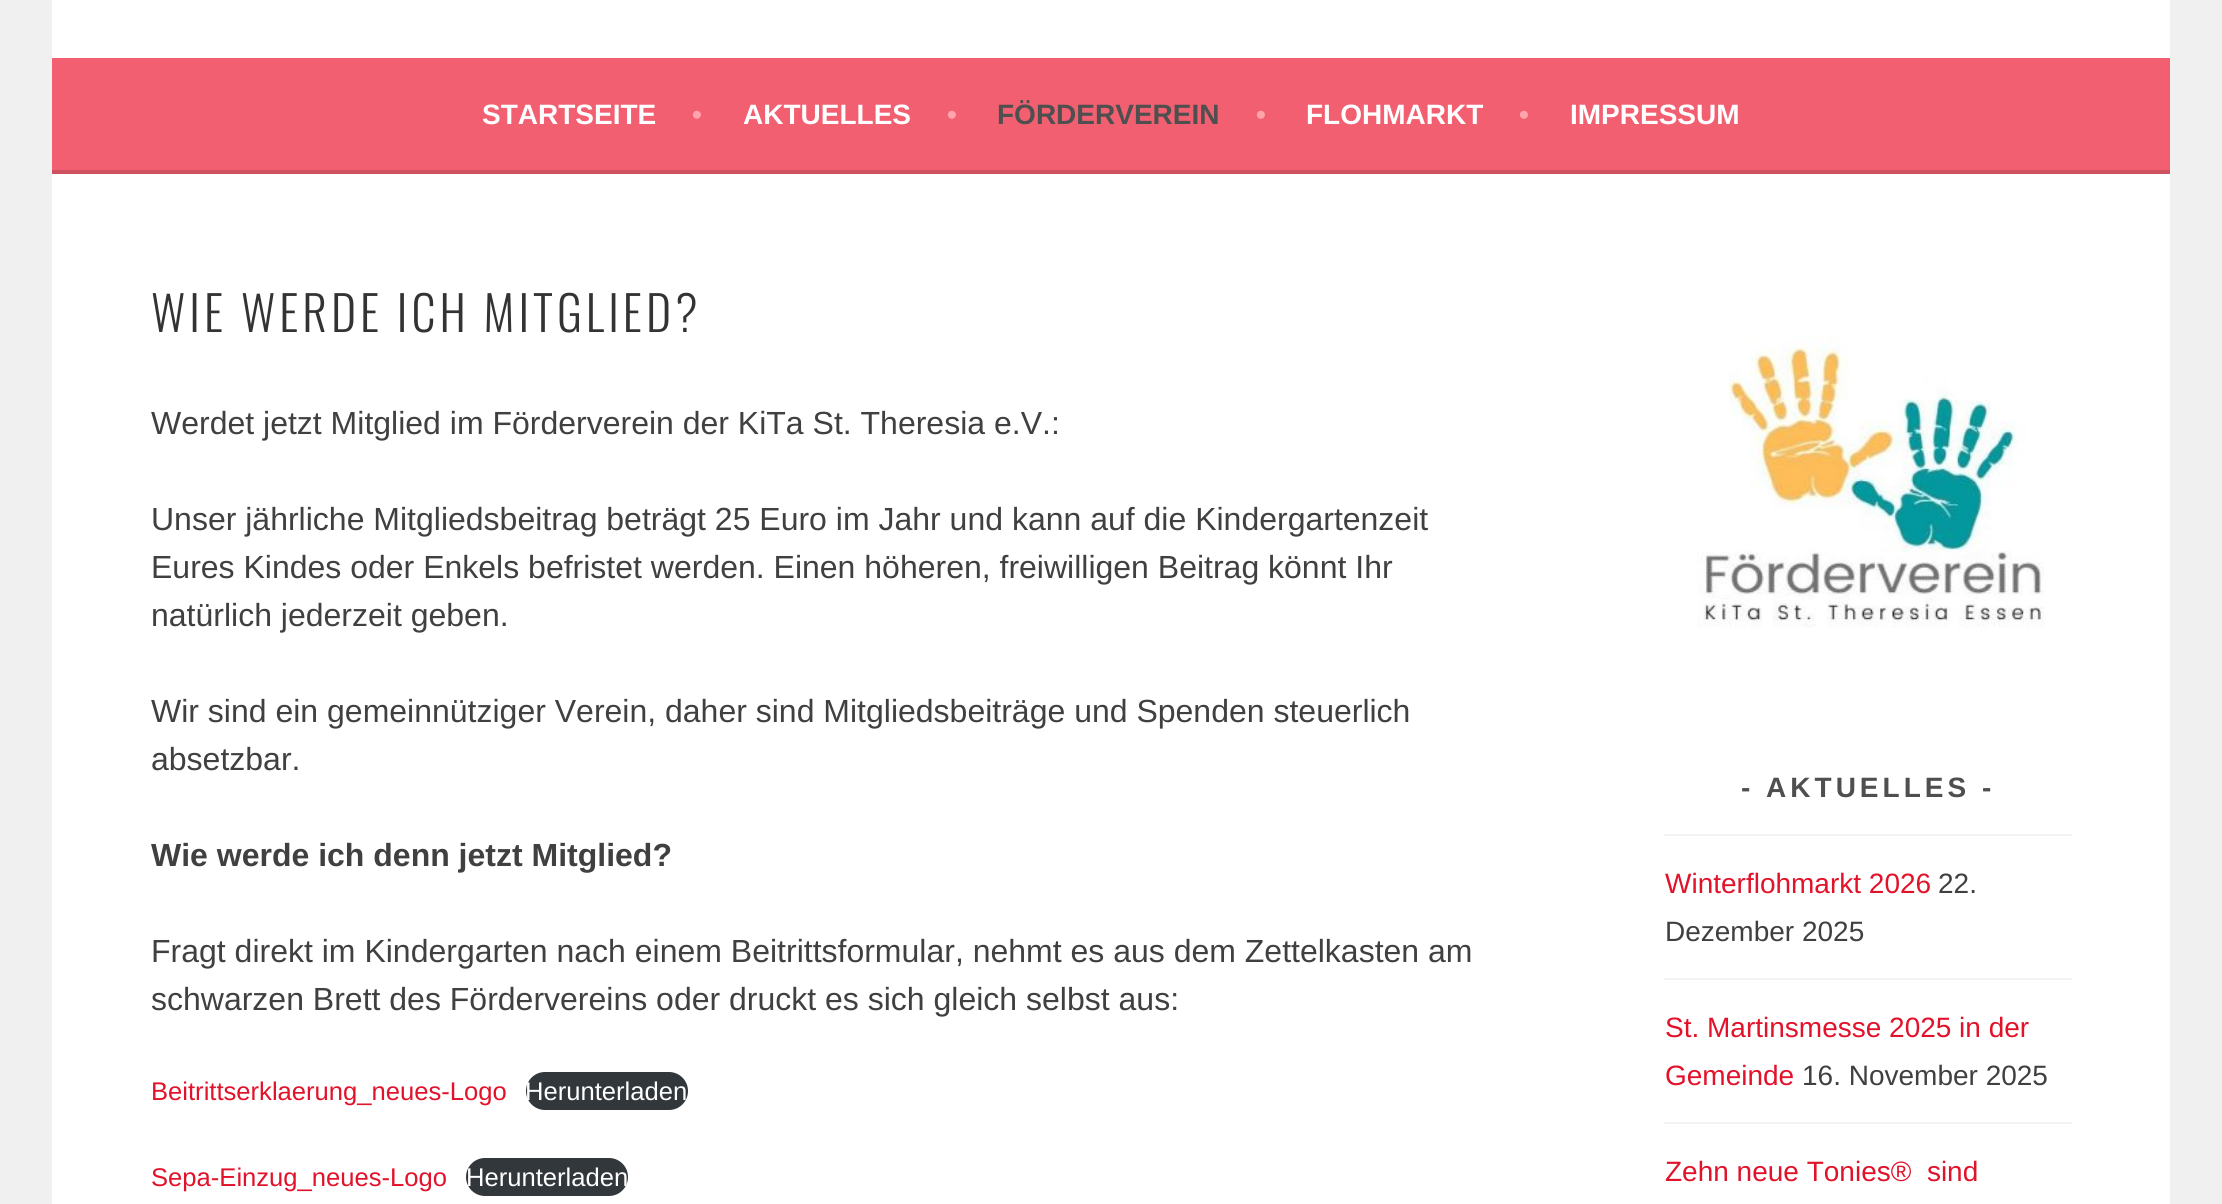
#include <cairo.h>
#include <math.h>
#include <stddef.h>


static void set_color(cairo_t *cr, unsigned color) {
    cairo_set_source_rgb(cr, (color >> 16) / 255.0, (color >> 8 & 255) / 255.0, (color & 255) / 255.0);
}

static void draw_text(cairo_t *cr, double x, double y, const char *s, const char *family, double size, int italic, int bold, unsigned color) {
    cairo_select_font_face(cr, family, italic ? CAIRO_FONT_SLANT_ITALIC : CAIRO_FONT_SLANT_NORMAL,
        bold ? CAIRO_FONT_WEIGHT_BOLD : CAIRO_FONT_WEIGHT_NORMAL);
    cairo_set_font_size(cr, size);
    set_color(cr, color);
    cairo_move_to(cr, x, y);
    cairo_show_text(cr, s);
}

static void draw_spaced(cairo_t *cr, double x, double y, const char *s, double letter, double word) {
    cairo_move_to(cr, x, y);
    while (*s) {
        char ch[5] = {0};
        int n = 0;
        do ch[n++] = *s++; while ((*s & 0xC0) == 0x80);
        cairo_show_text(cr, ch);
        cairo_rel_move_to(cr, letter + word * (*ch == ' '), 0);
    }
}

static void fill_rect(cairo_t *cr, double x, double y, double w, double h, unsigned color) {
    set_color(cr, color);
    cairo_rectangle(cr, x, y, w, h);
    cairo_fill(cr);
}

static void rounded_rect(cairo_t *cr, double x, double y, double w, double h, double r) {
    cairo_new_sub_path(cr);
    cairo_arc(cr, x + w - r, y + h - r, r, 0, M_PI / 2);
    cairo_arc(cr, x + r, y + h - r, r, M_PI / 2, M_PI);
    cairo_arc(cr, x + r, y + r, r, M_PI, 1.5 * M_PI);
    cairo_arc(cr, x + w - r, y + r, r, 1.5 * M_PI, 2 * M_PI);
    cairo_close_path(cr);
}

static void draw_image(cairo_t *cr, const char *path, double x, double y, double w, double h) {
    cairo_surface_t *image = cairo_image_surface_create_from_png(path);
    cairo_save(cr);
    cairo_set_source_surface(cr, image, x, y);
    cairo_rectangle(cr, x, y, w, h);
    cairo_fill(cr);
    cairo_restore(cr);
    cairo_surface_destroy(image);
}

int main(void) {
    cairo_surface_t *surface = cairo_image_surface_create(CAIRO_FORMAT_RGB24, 2222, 1204);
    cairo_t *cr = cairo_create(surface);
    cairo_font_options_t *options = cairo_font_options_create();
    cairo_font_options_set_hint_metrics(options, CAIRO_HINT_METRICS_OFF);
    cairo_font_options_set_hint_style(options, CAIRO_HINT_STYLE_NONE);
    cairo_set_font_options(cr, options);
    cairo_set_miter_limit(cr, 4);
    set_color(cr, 0xF0F0F0);
    cairo_paint(cr);
    fill_rect(cr, 52, 0, 2118, 58, 0xFFFFFF);
    fill_rect(cr, 52, 58, 2118, 112, 0xF25F70);
    fill_rect(cr, 52, 170, 2118, 4, 0xCE515F);
    draw_text(cr, 482, 124, "STARTSEITE", "Liberation Sans", 28, 0, 1, 0xFFFFFF);
    draw_text(cr, 692, 124, "•", "Liberation Sans", 28, 0, 1, 0xFFA4AD);
    draw_text(cr, 743, 124, "AKTUELLES", "Liberation Sans", 28, 0, 1, 0xFFFFFF);
    draw_text(cr, 947, 124, "•", "Liberation Sans", 28, 0, 1, 0xFFA4AD);
    draw_text(cr, 997, 124, "FÖRDERVEREIN", "Liberation Sans", 28, 0, 1, 0x4F4F4F);
    draw_text(cr, 1256, 124, "•", "Liberation Sans", 28, 0, 1, 0xFFA4AD);
    draw_text(cr, 1306, 124, "FLOHMARKT", "Liberation Sans", 28, 0, 1, 0xFFFFFF);
    draw_text(cr, 1519, 124, "•", "Liberation Sans", 28, 0, 1, 0xFFA4AD);
    draw_text(cr, 1570, 124, "IMPRESSUM", "Liberation Sans", 28, 0, 1, 0xFFFFFF);
    fill_rect(cr, 52, 174, 2118, 1030, 0xFFFFFF);
    cairo_select_font_face(cr, "Oswald Light", CAIRO_FONT_SLANT_NORMAL, CAIRO_FONT_WEIGHT_NORMAL);
    cairo_set_font_size(cr, 48);
    set_color(cr, 0x333333);
    draw_spaced(cr, 151, 332, "WIE WERDE ICH MITGLIED?", 4, 0);
    draw_text(cr, 151, 434, "Werdet jetzt Mitglied im Förderverein der KiTa St. Theresia e.V.:", "Liberation Sans", 32, 0, 0, 0x404040);
    draw_text(cr, 151, 530, "Unser jährliche Mitgliedsbeitrag beträgt 25 Euro im Jahr und kann auf die Kindergartenzeit", "Liberation Sans", 32, 0, 0, 0x404040);
    draw_text(cr, 151, 578, "Eures Kindes oder Enkels befristet werden. Einen höheren, freiwilligen Beitrag könnt Ihr", "Liberation Sans", 32, 0, 0, 0x404040);
    draw_text(cr, 151, 626, "natürlich jederzeit geben.", "Liberation Sans", 32, 0, 0, 0x404040);
    draw_text(cr, 151, 722, "Wir sind ein gemeinnütziger Verein, daher sind Mitgliedsbeiträge und Spenden steuerlich", "Liberation Sans", 32, 0, 0, 0x404040);
    draw_text(cr, 151, 770, "absetzbar.", "Liberation Sans", 32, 0, 0, 0x404040);
    draw_text(cr, 151, 866, "Wie werde ich denn jetzt Mitglied?", "Liberation Sans", 32, 0, 1, 0x404040);
    draw_text(cr, 151, 962, "Fragt direkt im Kindergarten nach einem Beitrittsformular, nehmt es aus dem Zettelkasten am", "Liberation Sans", 32, 0, 0, 0x404040);
    draw_text(cr, 151, 1010, "schwarzen Brett des Fördervereins oder druckt es sich gleich selbst aus:", "Liberation Sans", 32, 0, 0, 0x404040);
    draw_text(cr, 151, 1100, "Beitrittserklaerung_neues-Logo", "Liberation Sans", 25.6, 0, 0, 0xE1122A);
    set_color(cr, 0x32373C);
    rounded_rect(cr, 526, 1072, 162, 38, 19);
    cairo_fill(cr);
    draw_text(cr, 525, 1100, "Herunterladen", "Liberation Sans", 25.6, 0, 0, 0xFFFFFF);
    draw_text(cr, 151, 1186, "Sepa-Einzug_neues-Logo", "Liberation Sans", 25.6, 0, 0, 0xE1122A);
    set_color(cr, 0x32373C);
    rounded_rect(cr, 466, 1158, 162, 38, 19);
    cairo_fill(cr);
    draw_text(cr, 466, 1186, "Herunterladen", "Liberation Sans", 25.6, 0, 0, 0xFFFFFF);
    draw_image(cr, "assets/img1.png", 1697, 335, 348, 293);
    cairo_select_font_face(cr, "Liberation Sans", CAIRO_FONT_SLANT_NORMAL, CAIRO_FONT_WEIGHT_BOLD);
    cairo_set_font_size(cr, 28);
    set_color(cr, 0x4F4F4F);
    draw_spaced(cr, 1741, 797, "- AKTUELLES -", 4, 0);
    fill_rect(cr, 1664, 834, 408, 2, 0xF2F2F2);
    draw_text(cr, 1665, 893, "Winterflohmarkt 2026", "Liberation Sans", 28, 0, 0, 0xE1122A);
    draw_text(cr, 1938, 893, "22.", "Liberation Sans", 28, 0, 0, 0x404040);
    draw_text(cr, 1665, 941, "Dezember 2025", "Liberation Sans", 28, 0, 0, 0x404040);
    fill_rect(cr, 1664, 978, 408, 2, 0xF2F2F2);
    draw_text(cr, 1665, 1037, "St. Martinsmesse 2025 in der", "Liberation Sans", 28, 0, 0, 0xE1122A);
    draw_text(cr, 1665, 1085, "Gemeinde", "Liberation Sans", 28, 0, 0, 0xE1122A);
    draw_text(cr, 1802, 1085, "16. November 2025", "Liberation Sans", 28, 0, 0, 0x404040);
    fill_rect(cr, 1664, 1122, 408, 2, 0xF2F2F2);
    draw_text(cr, 1665, 1181, "Zehn neue Tonies®  sind", "Liberation Sans", 28, 0, 0, 0xE1122A);
    cairo_surface_write_to_png(surface, "output.png");
    cairo_font_options_destroy(options);
    cairo_destroy(cr);
    cairo_surface_destroy(surface);
    return 0;
}
